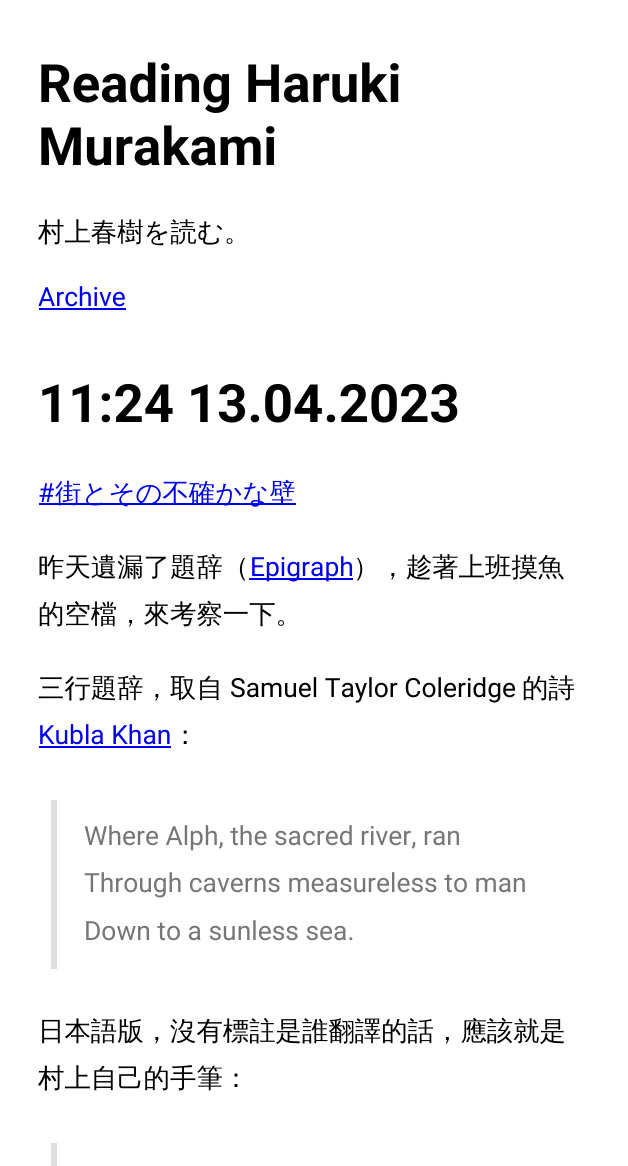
#include <cairo.h>
#include <math.h>
#include <stddef.h>


static void set_color(cairo_t *cr, unsigned color) {
    cairo_set_source_rgb(cr, (color >> 16) / 255.0, (color >> 8 & 255) / 255.0, (color & 255) / 255.0);
}

static void draw_text(cairo_t *cr, double x, double y, const char *s, const char *family, double size, int italic, int bold, unsigned color) {
    cairo_select_font_face(cr, family, italic ? CAIRO_FONT_SLANT_ITALIC : CAIRO_FONT_SLANT_NORMAL,
        bold ? CAIRO_FONT_WEIGHT_BOLD : CAIRO_FONT_WEIGHT_NORMAL);
    cairo_set_font_size(cr, size);
    set_color(cr, color);
    cairo_move_to(cr, x, y);
    cairo_show_text(cr, s);
}

static void fill_rect(cairo_t *cr, double x, double y, double w, double h, unsigned color) {
    set_color(cr, color);
    cairo_rectangle(cr, x, y, w, h);
    cairo_fill(cr);
}

int main(void) {
    cairo_surface_t *surface = cairo_image_surface_create(CAIRO_FORMAT_RGB24, 628, 1166);
    cairo_t *cr = cairo_create(surface);
    cairo_font_options_t *options = cairo_font_options_create();
    cairo_font_options_set_hint_metrics(options, CAIRO_HINT_METRICS_OFF);
    cairo_font_options_set_hint_style(options, CAIRO_HINT_STYLE_NONE);
    cairo_set_font_options(cr, options);
    cairo_set_miter_limit(cr, 4);
    set_color(cr, 0xFFFFFF);
    cairo_paint(cr);
    draw_text(cr, 38, 102, "Reading Haruki", "Roboto", 52.75, 0, 1, 0x000000);
    draw_text(cr, 38, 165, "Murakami", "Roboto", 52.75, 0, 1, 0x000000);
    draw_text(cr, 38, 241, "村上春樹を読む。", "WenQuanYi Zen Hei Medium", 26.4, 0, 0, 0x000000);
    draw_text(cr, 38, 306, "Archive", "Roboto", 26.4, 0, 0, 0x0000EE);
    fill_rect(cr, 39, 308, 87, 2, 0x0000EE);
    draw_text(cr, 38, 422, "11:24 13.04.2023", "Roboto", 52.75, 0, 1, 0x000000);
    draw_text(cr, 38, 502, "#", "Roboto", 26.4, 0, 0, 0x0000EE);
    fill_rect(cr, 39, 503, 257, 2, 0x0000EE);
    draw_text(cr, 55, 502, "街とその不確かな壁", "WenQuanYi Zen Hei Medium", 26.4, 0, 0, 0x0000EE);
    draw_text(cr, 38, 576, "昨天遺漏了題辞（", "WenQuanYi Zen Hei Medium", 26.4, 0, 0, 0x000000);
    fill_rect(cr, 249, 578, 104, 2, 0x0000EE);
    draw_text(cr, 250, 576, "Epigraph", "Roboto", 26.4, 0, 0, 0x0000EE);
    draw_text(cr, 353, 576, "），趁著上班摸魚", "WenQuanYi Zen Hei Medium", 26.4, 0, 0, 0x000000);
    draw_text(cr, 38, 623, "的空檔，來考察一下。", "WenQuanYi Zen Hei Medium", 26.4, 0, 0, 0x000000);
    draw_text(cr, 38, 697, "三行題辞，取自", "WenQuanYi Zen Hei Medium", 26.4, 0, 0, 0x000000);
    draw_text(cr, 230, 697, "Samuel Taylor Coleridge", "Roboto", 26.4, 0, 0, 0x000000);
    draw_text(cr, 522, 697, "的詩", "WenQuanYi Zen Hei Medium", 26.4, 0, 0, 0x000000);
    draw_text(cr, 38, 744, "Kubla Khan", "Roboto", 26.4, 0, 0, 0x0000EE);
    fill_rect(cr, 39, 746, 132, 2, 0x0000EE);
    draw_text(cr, 172, 744, "：", "WenQuanYi Zen Hei Medium", 26.4, 0, 0, 0x000000);
    fill_rect(cr, 51, 800, 6, 169, 0xDDDDDD);
    draw_text(cr, 84, 845, "Where Alph, the sacred river, ran", "Roboto", 26.4, 0, 0, 0x767676);
    draw_text(cr, 84, 892, "Through caverns measureless to man", "Roboto", 26.4, 0, 0, 0x767676);
    draw_text(cr, 84, 940, "Down to a sunless sea.", "Roboto", 26.4, 0, 0, 0x767676);
    draw_text(cr, 38, 1040, "日本語版，沒有標註是誰翻譯的話，應該就是", "WenQuanYi Zen Hei Medium", 26.4, 0, 0, 0x000000);
    draw_text(cr, 38, 1087, "村上自己的手筆：", "WenQuanYi Zen Hei Medium", 26.4, 0, 0, 0x000000);
    fill_rect(cr, 51, 1143, 6, 23, 0xDDDDDD);
    cairo_surface_write_to_png(surface, "output.png");
    cairo_font_options_destroy(options);
    cairo_destroy(cr);
    cairo_surface_destroy(surface);
    return 0;
}
